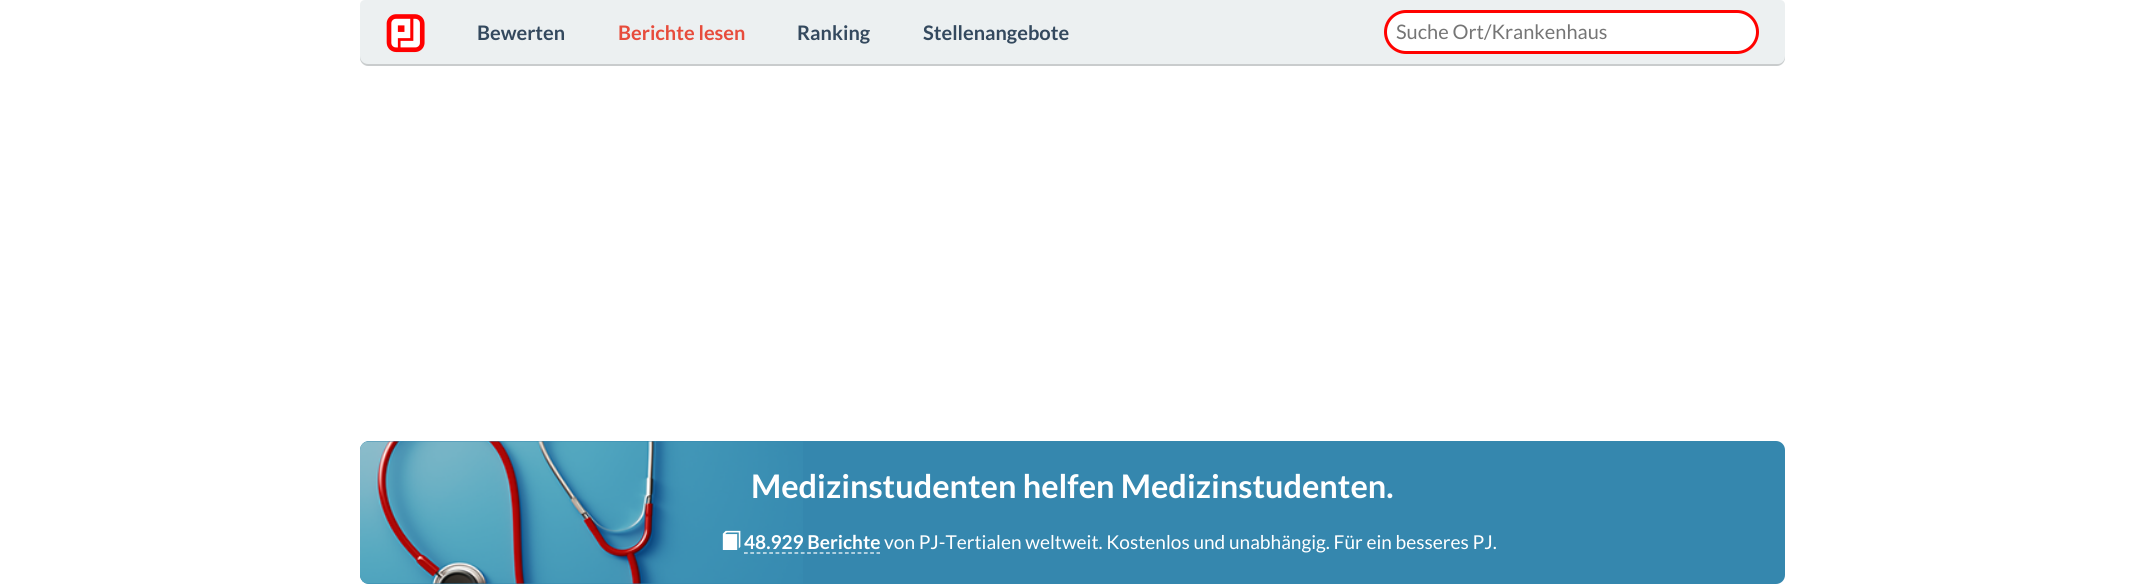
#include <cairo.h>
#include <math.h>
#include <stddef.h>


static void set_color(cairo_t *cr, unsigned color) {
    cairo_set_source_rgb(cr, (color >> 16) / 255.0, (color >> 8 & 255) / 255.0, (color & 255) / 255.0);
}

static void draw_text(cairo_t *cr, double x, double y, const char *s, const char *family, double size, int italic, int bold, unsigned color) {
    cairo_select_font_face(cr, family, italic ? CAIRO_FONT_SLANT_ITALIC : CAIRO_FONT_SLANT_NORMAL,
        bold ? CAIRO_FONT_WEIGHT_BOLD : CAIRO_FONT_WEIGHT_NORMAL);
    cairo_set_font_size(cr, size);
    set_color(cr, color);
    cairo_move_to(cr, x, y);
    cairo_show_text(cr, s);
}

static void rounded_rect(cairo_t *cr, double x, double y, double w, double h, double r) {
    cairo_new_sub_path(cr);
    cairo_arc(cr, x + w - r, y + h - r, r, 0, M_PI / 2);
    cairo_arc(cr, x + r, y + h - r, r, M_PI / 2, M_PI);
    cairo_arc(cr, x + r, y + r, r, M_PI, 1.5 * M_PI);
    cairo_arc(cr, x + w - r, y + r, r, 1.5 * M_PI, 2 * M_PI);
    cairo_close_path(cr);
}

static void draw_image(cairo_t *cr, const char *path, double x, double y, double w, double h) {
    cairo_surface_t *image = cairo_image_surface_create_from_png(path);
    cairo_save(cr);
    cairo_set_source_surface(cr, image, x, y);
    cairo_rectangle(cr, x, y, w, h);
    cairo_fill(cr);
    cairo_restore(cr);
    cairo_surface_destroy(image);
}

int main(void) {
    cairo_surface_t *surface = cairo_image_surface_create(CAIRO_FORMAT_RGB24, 2143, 587);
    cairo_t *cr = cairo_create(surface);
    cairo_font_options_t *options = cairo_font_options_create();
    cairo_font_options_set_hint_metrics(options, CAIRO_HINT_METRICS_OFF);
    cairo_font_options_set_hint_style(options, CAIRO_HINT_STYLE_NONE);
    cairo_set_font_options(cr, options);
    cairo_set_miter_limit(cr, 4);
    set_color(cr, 0xFFFFFF);
    cairo_paint(cr);
    set_color(cr, 0xECF0F1);
    cairo_new_path(cr);
    cairo_move_to(cr, 365, 0);
    cairo_line_to(cr, 1780, 0);
    cairo_curve_to(cr, 1783, 0, 1785, 2, 1785, 5);
    cairo_line_to(cr, 1785, 58);
    cairo_curve_to(cr, 1785, 62.5, 1781.5, 66, 1777, 66);
    cairo_line_to(cr, 368, 66);
    cairo_curve_to(cr, 363.5, 66, 360, 62.5, 360, 58);
    cairo_line_to(cr, 360, 5);
    cairo_curve_to(cr, 360, 2, 362, 0, 365, 0);
    cairo_close_path(cr);
    cairo_fill(cr);
    draw_image(cr, "assets/img1.png", 386, 14, 39, 39);
    cairo_set_source_rgba(cr, 0, 0, 0, 0.15);
    cairo_new_path(cr);
    cairo_move_to(cr, 360, 56);
    cairo_line_to(cr, 360, 58);
    cairo_curve_to(cr, 360, 62, 364, 66, 368, 66);
    cairo_line_to(cr, 1777, 66);
    cairo_curve_to(cr, 1781, 66, 1785, 62, 1785, 58);
    cairo_line_to(cr, 1785, 56);
    cairo_curve_to(cr, 1785, 60, 1782, 64, 1778, 64);
    cairo_line_to(cr, 368, 64);
    cairo_curve_to(cr, 363, 64, 360, 60, 360, 56);
    cairo_close_path(cr);
    cairo_fill(cr);
    draw_text(cr, 477, 40, "Bewerten", "Lato", 20, 0, 1, 0x34495E);
    draw_text(cr, 618, 40, "Berichte lesen", "Lato", 20, 0, 1, 0xE74C3C);
    draw_text(cr, 797, 40, "Ranking", "Lato", 20, 0, 1, 0x34495E);
    draw_text(cr, 923, 40, "Stellenangebote", "Lato", 20, 0, 1, 0x34495E);
    set_color(cr, 0xFFFFFF);
    rounded_rect(cr, 1385.5, 11.5, 372, 41, 20.5);
    cairo_fill_preserve(cr);
    set_color(cr, 0xFF0200);
    cairo_set_line_width(cr, 3);
    cairo_stroke(cr);
    draw_text(cr, 1396, 39, "Suche Ort/Krankenhaus", "Lato", 20, 0, 0, 0x757575);
    set_color(cr, 0x3587AE);
    rounded_rect(cr, 360, 441, 1425, 143, 9);
    cairo_fill(cr);
    draw_image(cr, "assets/img2.png", 360, 441, 443, 143);
    draw_text(cr, 751, 498, "Medizinstudenten helfen Medizinstudenten.", "Lato", 32.5, 0, 1, 0xFFFFFF);
    draw_image(cr, "assets/img3.png", 722, 530, 19, 20);
    draw_text(cr, 744, 549, "48.929 Berichte", "Lato", 19.1, 0, 1, 0xFFFFFF);
    cairo_new_path(cr);
    cairo_move_to(cr, 744, 553);
    cairo_line_to(cr, 880, 553);
    cairo_set_line_width(cr, 1.2);
    cairo_set_dash(cr, (double[]){3.75, 2.56}, 2, 0);
    cairo_stroke(cr);
    draw_text(cr, 884, 549, "von PJ-Tertialen weltweit. Kostenlos und unabhängig. Für ein besseres PJ.", "Lato", 19.1, 0, 0, 0xFFFFFF);
    cairo_surface_write_to_png(surface, "output.png");
    cairo_font_options_destroy(options);
    cairo_destroy(cr);
    cairo_surface_destroy(surface);
    return 0;
}
